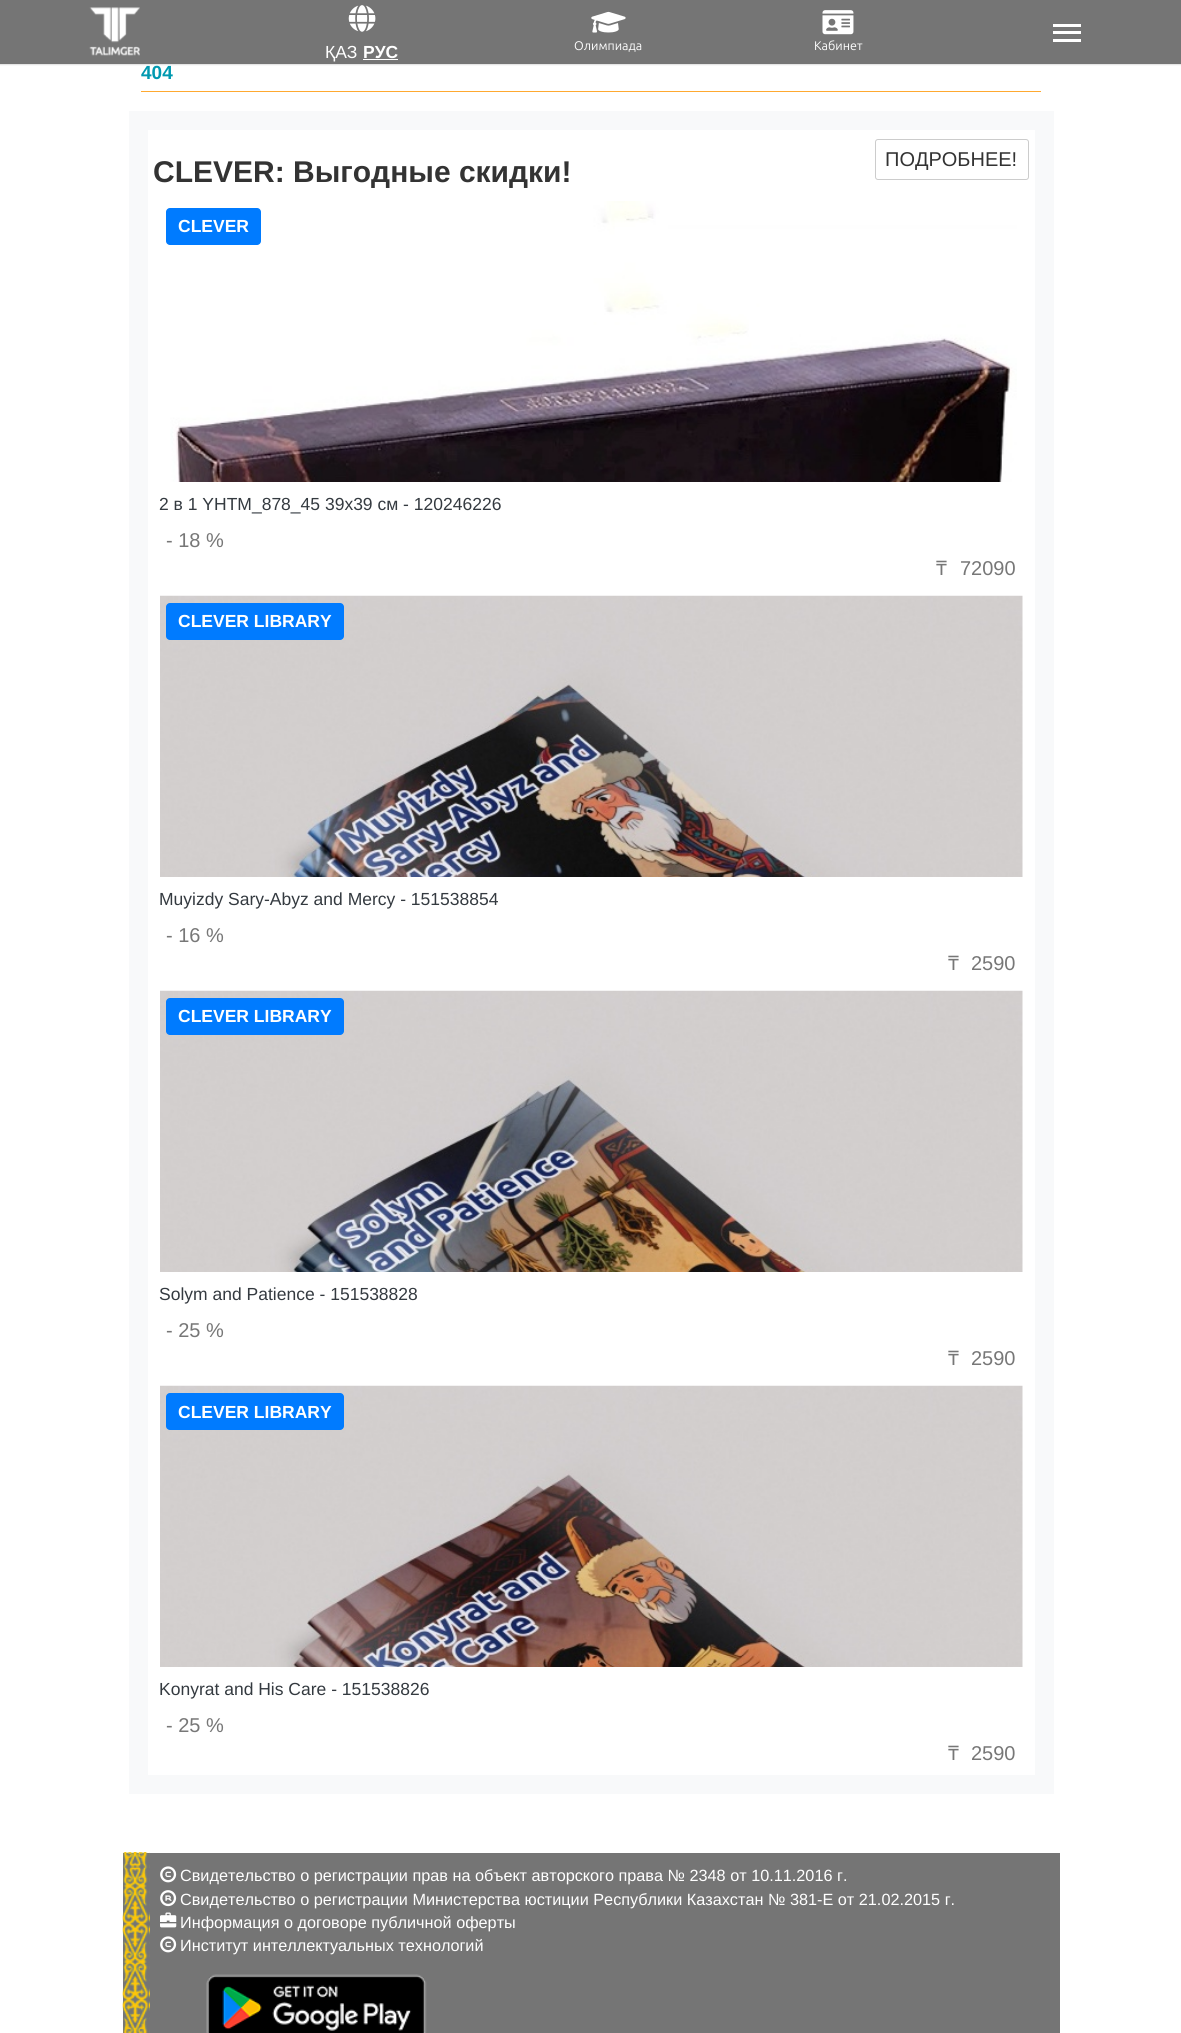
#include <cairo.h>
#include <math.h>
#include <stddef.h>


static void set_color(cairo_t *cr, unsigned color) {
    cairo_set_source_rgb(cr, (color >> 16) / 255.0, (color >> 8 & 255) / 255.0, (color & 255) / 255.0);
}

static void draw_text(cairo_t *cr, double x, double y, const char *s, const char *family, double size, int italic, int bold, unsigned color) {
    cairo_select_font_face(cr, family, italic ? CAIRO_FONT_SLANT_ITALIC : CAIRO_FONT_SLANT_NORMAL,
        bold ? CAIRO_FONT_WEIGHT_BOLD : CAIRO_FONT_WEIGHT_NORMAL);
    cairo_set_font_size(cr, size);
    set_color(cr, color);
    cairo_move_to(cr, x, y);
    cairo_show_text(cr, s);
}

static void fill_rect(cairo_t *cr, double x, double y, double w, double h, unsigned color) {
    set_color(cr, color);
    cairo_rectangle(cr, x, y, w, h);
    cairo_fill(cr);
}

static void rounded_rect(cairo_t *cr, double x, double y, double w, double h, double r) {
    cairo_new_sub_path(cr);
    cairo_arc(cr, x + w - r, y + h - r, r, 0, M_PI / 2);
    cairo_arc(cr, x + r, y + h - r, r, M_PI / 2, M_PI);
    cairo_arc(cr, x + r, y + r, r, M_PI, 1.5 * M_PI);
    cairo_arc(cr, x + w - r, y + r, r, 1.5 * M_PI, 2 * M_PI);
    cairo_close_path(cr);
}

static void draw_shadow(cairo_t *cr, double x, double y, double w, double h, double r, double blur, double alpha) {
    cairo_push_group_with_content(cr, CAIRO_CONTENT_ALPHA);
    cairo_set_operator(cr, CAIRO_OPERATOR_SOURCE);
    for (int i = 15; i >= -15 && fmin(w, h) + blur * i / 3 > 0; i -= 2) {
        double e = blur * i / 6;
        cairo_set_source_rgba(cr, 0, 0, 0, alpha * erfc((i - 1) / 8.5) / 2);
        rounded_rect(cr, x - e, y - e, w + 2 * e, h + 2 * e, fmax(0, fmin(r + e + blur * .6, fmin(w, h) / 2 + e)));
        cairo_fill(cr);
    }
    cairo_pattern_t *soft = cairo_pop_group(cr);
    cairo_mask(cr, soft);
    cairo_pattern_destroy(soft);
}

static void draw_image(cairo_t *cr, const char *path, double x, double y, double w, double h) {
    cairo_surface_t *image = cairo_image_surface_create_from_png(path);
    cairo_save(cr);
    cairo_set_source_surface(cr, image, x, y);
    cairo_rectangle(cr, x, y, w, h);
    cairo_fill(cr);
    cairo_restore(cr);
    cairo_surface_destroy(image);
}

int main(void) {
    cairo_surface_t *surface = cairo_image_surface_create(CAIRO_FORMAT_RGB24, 1181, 2033);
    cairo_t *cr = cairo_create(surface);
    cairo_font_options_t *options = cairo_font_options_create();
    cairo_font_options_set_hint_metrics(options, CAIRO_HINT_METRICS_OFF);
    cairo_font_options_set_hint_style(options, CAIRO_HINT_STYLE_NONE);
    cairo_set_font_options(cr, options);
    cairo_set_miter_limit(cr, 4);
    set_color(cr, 0xFFFFFF);
    cairo_paint(cr);
    set_color(cr, 0x000000);
    draw_shadow(cr, -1, -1, 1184, 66, 0, 0.5, 0.12);
    fill_rect(cr, 0, 0, 1181, 64, 0x757575);
    draw_image(cr, "assets/img1.png", 89, 7, 51, 49);
    fill_rect(cr, 1053, 31, 28, 3, 0xFFFFFF);
    fill_rect(cr, 1053, 24, 28, 3, 0xFFFFFF);
    fill_rect(cr, 1053, 39, 28, 3, 0xFFFFFF);
    draw_image(cr, "assets/img2.png", 348, 5, 28, 27);
    draw_text(cr, 325, 58, "ҚАЗ", "Liberation Sans", 17.5, 0, 0, 0xFFFFFF);
    draw_text(cr, 363, 58, "РУС", "Liberation Sans", 17.5, 0, 1, 0xFFFFFF);
    fill_rect(cr, 363, 59, 35, 1, 0xFFFFFF);
    draw_image(cr, "assets/img3.png", 591, 11, 35, 22);
    draw_text(cr, 574, 50, "Олимпиада", "Ubuntu", 12.5, 0, 0, 0xFFFFFF);
    draw_image(cr, "assets/img4.png", 822, 10, 32, 25);
    draw_text(cr, 814, 50, "Кабинет", "Ubuntu", 12.5, 0, 0, 0xFFFFFF);
    fill_rect(cr, 141, 91, 900, 1, 0xFFA930);
    draw_text(cr, 141, 79, "404", "Liberation Sans", 19, 0, 1, 0x0099B0);
    fill_rect(cr, 129, 111, 925, 1683, 0xF8F9FA);
    fill_rect(cr, 148, 130, 887, 1645, 0xFFFFFF);
    draw_text(cr, 153, 182, "CLEVER: Выгодные скидки!", "Liberation Sans", 30, 0, 1, 0x333333);
    rounded_rect(cr, 875.5, 139.5, 153, 40, 2.5);
    set_color(cr, 0xCCCCCC);
    cairo_set_line_width(cr, 1);
    cairo_stroke(cr);
    draw_text(cr, 885, 166, "ПОДРОБНЕЕ!", "Liberation Sans", 20, 0, 0, 0x333333);
    draw_image(cr, "assets/img5.png", 170, 201, 847, 281);
    set_color(cr, 0x007BFF);
    rounded_rect(cr, 166, 208, 95, 37, 4);
    cairo_fill(cr);
    draw_text(cr, 178, 232, "CLEVER", "Liberation Sans", 17.5, 0, 1, 0xFFFFFF);
    draw_text(cr, 159, 510, "2 в 1 YHTM_878_45 39x39 см - 120246226", "Liberation Sans", 17.5, 0, 0, 0x343A40);
    draw_text(cr, 166, 547, "- 18 %", "Liberation Sans", 20, 0, 0, 0x777777);
    draw_text(cr, 936, 575, "₸", "Noto Sans", 20, 0, 0, 0x777777);
    draw_text(cr, 960, 575, "72090", "Liberation Sans", 20, 0, 0, 0x777777);
    draw_image(cr, "assets/img6.png", 160, 595, 863, 282);
    set_color(cr, 0x007BFF);
    rounded_rect(cr, 166, 603, 178, 37, 4);
    cairo_fill(cr);
    draw_text(cr, 178, 627, "CLEVER LIBRARY", "Liberation Sans", 17.5, 0, 1, 0xFFFFFF);
    draw_text(cr, 159, 905, "Muyizdy Sary-Abyz and Mercy - 151538854", "Liberation Sans", 17.5, 0, 0, 0x343A40);
    draw_text(cr, 166, 942, "- 16 %", "Liberation Sans", 20, 0, 0, 0x777777);
    draw_text(cr, 948, 970, "₸", "Noto Sans", 20, 0, 0, 0x777777);
    draw_text(cr, 971, 970, "2590", "Liberation Sans", 20, 0, 0, 0x777777);
    draw_image(cr, "assets/img7.png", 160, 990, 863, 282);
    set_color(cr, 0x007BFF);
    rounded_rect(cr, 166, 998, 178, 37, 4);
    cairo_fill(cr);
    draw_text(cr, 178, 1022, "CLEVER LIBRARY", "Liberation Sans", 17.5, 0, 1, 0xFFFFFF);
    draw_text(cr, 159, 1300, "Solym and Patience - 151538828", "Liberation Sans", 17.5, 0, 0, 0x343A40);
    draw_text(cr, 166, 1337, "- 25 %", "Liberation Sans", 20, 0, 0, 0x777777);
    draw_text(cr, 948, 1365, "₸", "Noto Sans", 20, 0, 0, 0x777777);
    draw_text(cr, 971, 1365, "2590", "Liberation Sans", 20, 0, 0, 0x777777);
    draw_image(cr, "assets/img8.png", 160, 1385, 863, 282);
    set_color(cr, 0x007BFF);
    rounded_rect(cr, 166, 1393, 178, 37, 4);
    cairo_fill(cr);
    draw_text(cr, 178, 1418, "CLEVER LIBRARY", "Liberation Sans", 17.5, 0, 1, 0xFFFFFF);
    draw_text(cr, 159, 1695, "Konyrat and His Care - 151538826", "Liberation Sans", 17.5, 0, 0, 0x343A40);
    draw_text(cr, 166, 1732, "- 25 %", "Liberation Sans", 20, 0, 0, 0x777777);
    draw_text(cr, 948, 1760, "₸", "Noto Sans", 20, 0, 0, 0x777777);
    draw_text(cr, 971, 1760, "2590", "Liberation Sans", 20, 0, 0, 0x777777);
    fill_rect(cr, 123, 1853, 937, 180, 0x757575);
    draw_image(cr, "assets/img9.png", 122, 1852, 28, 181);
    draw_image(cr, "assets/img10.png", 160, 1866, 17, 17);
    draw_text(cr, 180, 1881, "Свидетельство о регистрации прав на объект авторского права № 2348 от 10.11.2016 г.", "Liberation Sans", 16.25, 0, 0, 0xFFFFFF);
    draw_image(cr, "assets/img11.png", 160, 1890, 17, 17);
    draw_text(cr, 180, 1905, "Свидетельство о регистрации Министерства юстиции Республики Казахстан № 381-Е от 21.02.2015 г.", "Liberation Sans", 16.25, 0, 0, 0xFFFFFF);
    draw_image(cr, "assets/img12.png", 160, 1912, 17, 16);
    draw_text(cr, 180, 1928, "Информация о договоре публичной оферты", "Liberation Sans", 16.25, 0, 0, 0xFFFFFF);
    draw_image(cr, "assets/img10.png", 160, 1936, 17, 17);
    draw_text(cr, 180, 1951, "Институт интеллектуальных технологий", "Liberation Sans", 16.25, 0, 0, 0xFFFFFF);
    draw_image(cr, "assets/img13.png", 206, 1974, 221, 59);
    cairo_surface_write_to_png(surface, "output.png");
    cairo_font_options_destroy(options);
    cairo_destroy(cr);
    cairo_surface_destroy(surface);
    return 0;
}
